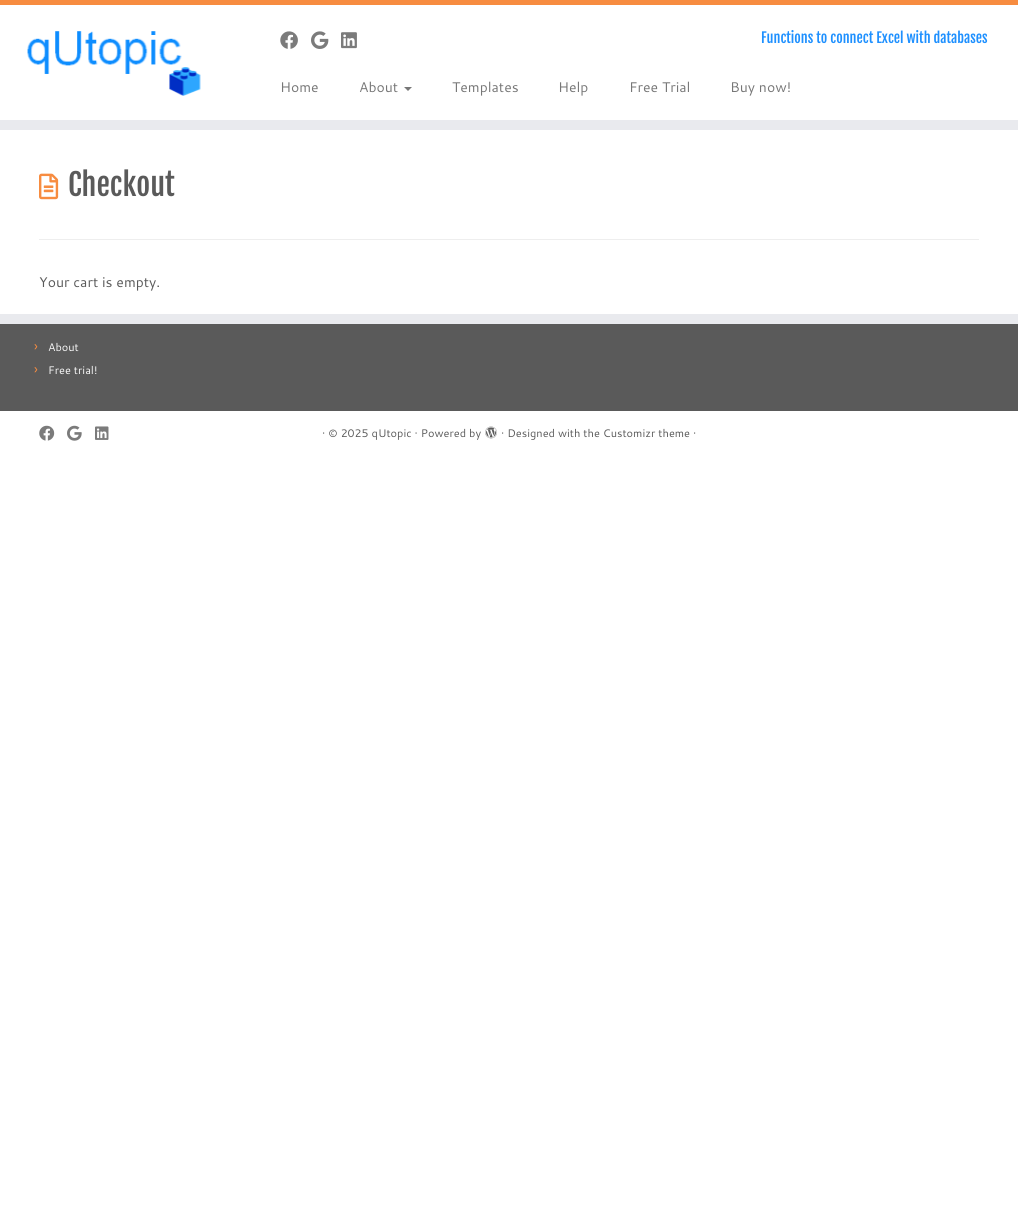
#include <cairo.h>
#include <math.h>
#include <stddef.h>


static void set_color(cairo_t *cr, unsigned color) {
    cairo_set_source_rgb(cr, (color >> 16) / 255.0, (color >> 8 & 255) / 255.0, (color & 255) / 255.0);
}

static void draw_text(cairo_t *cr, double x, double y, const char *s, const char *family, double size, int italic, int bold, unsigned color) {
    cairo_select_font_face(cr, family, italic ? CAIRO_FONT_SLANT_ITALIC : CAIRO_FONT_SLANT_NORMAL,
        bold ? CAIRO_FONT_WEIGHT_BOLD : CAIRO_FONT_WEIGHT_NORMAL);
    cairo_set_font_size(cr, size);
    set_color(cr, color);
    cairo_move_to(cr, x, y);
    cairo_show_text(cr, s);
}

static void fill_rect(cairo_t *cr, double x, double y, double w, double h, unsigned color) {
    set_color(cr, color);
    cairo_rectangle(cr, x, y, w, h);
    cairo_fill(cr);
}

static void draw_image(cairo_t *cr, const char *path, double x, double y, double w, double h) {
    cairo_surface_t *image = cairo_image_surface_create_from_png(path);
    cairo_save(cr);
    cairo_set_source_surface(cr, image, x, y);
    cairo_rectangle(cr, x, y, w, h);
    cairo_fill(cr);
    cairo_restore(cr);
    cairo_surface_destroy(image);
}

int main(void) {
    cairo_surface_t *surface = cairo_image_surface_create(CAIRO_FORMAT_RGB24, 1018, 1211);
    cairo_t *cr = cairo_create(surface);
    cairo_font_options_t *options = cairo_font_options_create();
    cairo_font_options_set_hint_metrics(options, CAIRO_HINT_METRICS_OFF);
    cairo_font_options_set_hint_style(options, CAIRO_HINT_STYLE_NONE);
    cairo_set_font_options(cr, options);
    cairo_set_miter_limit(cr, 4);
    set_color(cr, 0xFFFFFF);
    cairo_paint(cr);
    fill_rect(cr, 0, 0, 1018, 5, 0xF78C40);
    fill_rect(cr, 0, 120, 1018, 10, 0xE9EAEE);
    draw_image(cr, "assets/img1.png", 27, 31, 174, 65);
    draw_image(cr, "assets/img2.png", 280, 31, 18, 18);
    draw_image(cr, "assets/img3.png", 311, 31, 18, 18);
    draw_image(cr, "assets/img4.png", 341, 32, 16, 17);
    draw_text(cr, 761, 43, "Functions to connect Excel with databases", "Fjalla One", 14, 0, 0, 0x1E90FF);
    draw_text(cr, 280, 92, "Home", "Cantarell", 14, 0, 0, 0x777777);
    draw_text(cr, 359, 92, "About", "Cantarell", 14, 0, 0, 0x777777);
    cairo_new_path(cr);
    cairo_move_to(cr, 404, 87);
    cairo_line_to(cr, 412, 87);
    cairo_line_to(cr, 408, 91);
    cairo_close_path(cr);
    cairo_fill(cr);
    draw_text(cr, 452, 92, "Templates", "Cantarell", 14, 0, 0, 0x777777);
    draw_text(cr, 558, 92, "Help", "Cantarell", 14, 0, 0, 0x777777);
    draw_text(cr, 629, 92, "Free Trial", "Cantarell", 14, 0, 0, 0x777777);
    draw_text(cr, 730, 92, "Buy now!", "Cantarell", 14, 0, 0, 0x777777);
    draw_image(cr, "assets/img5.png", 39, 173, 20, 27);
    draw_text(cr, 68, 196, "Checkout", "Fjalla One", 30, 0, 0, 0x5A5A5A);
    fill_rect(cr, 39, 239, 940, 1, 0xEEEEEE);
    draw_text(cr, 39, 287, "Your cart is empty.", "Cantarell", 14, 0, 0, 0x5A5A5A);
    fill_rect(cr, 0, 324, 1018, 87, 0x5A5A5A);
    fill_rect(cr, 0, 314, 1018, 10, 0xE9EAEE);
    draw_text(cr, 34, 351, "›", "Cantarell", 14, 0, 0, 0xF78C40);
    draw_text(cr, 48, 351, "About", "Cantarell", 11, 0, 0, 0xFAFAFA);
    draw_text(cr, 34, 374, "›", "Cantarell", 14, 0, 0, 0xF78C40);
    draw_text(cr, 48, 374, "Free trial!", "Cantarell", 11, 0, 0, 0xFAFAFA);
    draw_image(cr, "assets/img6.png", 39, 425, 16, 16);
    draw_image(cr, "assets/img7.png", 67, 425, 15, 16);
    draw_image(cr, "assets/img8.png", 95, 426, 14, 14);
    draw_text(cr, 322, 437, "· © 2025 qUtopic · Powered by", "Cantarell", 11, 0, 0, 0x5A5A5A);
    draw_image(cr, "assets/img9.png", 485, 426, 12, 13);
    draw_text(cr, 501, 437, "· Designed with the Customizr theme ·", "Cantarell", 11, 0, 0, 0x5A5A5A);
    cairo_surface_write_to_png(surface, "output.png");
    cairo_font_options_destroy(options);
    cairo_destroy(cr);
    cairo_surface_destroy(surface);
    return 0;
}
